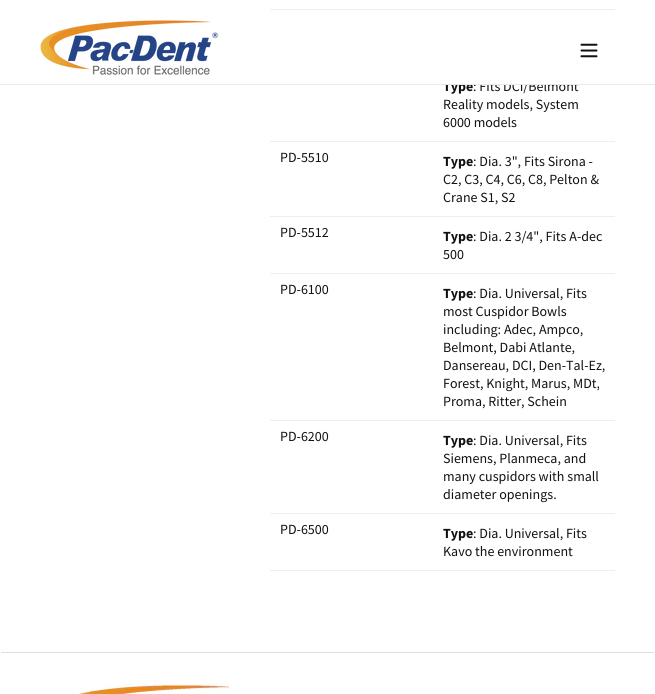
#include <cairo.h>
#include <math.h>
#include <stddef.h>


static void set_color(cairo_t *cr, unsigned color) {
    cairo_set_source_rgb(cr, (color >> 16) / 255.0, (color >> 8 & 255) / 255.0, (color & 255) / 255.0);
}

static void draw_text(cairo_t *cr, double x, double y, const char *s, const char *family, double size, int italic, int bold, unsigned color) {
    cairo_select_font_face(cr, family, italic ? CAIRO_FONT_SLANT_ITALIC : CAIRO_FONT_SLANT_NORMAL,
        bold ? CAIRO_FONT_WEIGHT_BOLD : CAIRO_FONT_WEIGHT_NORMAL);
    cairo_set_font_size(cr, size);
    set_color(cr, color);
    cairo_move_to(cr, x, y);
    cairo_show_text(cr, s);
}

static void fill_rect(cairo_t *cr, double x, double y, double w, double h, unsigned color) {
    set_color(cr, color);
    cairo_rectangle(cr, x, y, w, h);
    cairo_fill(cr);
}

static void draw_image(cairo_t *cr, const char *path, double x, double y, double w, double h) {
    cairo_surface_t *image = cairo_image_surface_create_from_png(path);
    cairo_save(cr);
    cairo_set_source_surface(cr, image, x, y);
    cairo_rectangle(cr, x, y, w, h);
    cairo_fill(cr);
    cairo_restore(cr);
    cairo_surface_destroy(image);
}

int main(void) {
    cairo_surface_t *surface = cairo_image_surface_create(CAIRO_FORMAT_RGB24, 655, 694);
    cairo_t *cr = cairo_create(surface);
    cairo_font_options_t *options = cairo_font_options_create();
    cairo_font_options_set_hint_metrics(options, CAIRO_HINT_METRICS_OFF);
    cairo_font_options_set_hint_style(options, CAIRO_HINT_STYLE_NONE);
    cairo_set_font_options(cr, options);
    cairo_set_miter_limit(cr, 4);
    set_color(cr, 0xFFFFFF);
    cairo_paint(cr);
    draw_text(cr, 443, 91, "Type", "Source Sans Pro", 14, 0, 1, 0x111111);
    draw_text(cr, 473, 91, ": Fits DCI/Belmont", "Source Sans Pro", 14, 0, 0, 0x111111);
    fill_rect(cr, 442, 81, 135, 3, 0xFFFFFF);
    fill_rect(cr, 0, 84, 655, 1, 0xE8E9EB);
    draw_image(cr, "assets/img1.png", 40, 20, 179, 55);
    draw_image(cr, "assets/img2.png", 580, 43, 18, 15);
    fill_rect(cr, 270, 9, 345, 1, 0xEEEEEE);
    fill_rect(cr, 270, 141, 345, 1, 0xEEEEEE);
    draw_text(cr, 443, 109, "Reality models, System", "Source Sans Pro", 14, 0, 0, 0x111111);
    draw_text(cr, 443, 127, "6000 models", "Source Sans Pro", 14, 0, 0, 0x111111);
    fill_rect(cr, 270, 216, 345, 1, 0xEEEEEE);
    draw_text(cr, 280, 162, "PD-5510", "Source Sans Pro", 14, 0, 0, 0x111111);
    draw_text(cr, 443, 166, "Type", "Source Sans Pro", 14, 0, 1, 0x111111);
    draw_text(cr, 473, 166, ": Dia. 3\", Fits Sirona -", "Source Sans Pro", 14, 0, 0, 0x111111);
    draw_text(cr, 443, 184, "C2, C3, C4, C6, C8, Pelton &", "Source Sans Pro", 14, 0, 0, 0x111111);
    draw_text(cr, 443, 202, "Crane S1, S2", "Source Sans Pro", 14, 0, 0, 0x111111);
    fill_rect(cr, 270, 273, 345, 1, 0xEEEEEE);
    draw_text(cr, 280, 237, "PD-5512", "Source Sans Pro", 14, 0, 0, 0x111111);
    draw_text(cr, 443, 241, "Type", "Source Sans Pro", 14, 0, 1, 0x111111);
    draw_text(cr, 473, 241, ": Dia. 2 3/4\", Fits A-dec", "Source Sans Pro", 14, 0, 0, 0x111111);
    draw_text(cr, 443, 259, "500", "Source Sans Pro", 14, 0, 0, 0x111111);
    fill_rect(cr, 270, 420, 345, 1, 0xEEEEEE);
    draw_text(cr, 280, 294, "PD-6100", "Source Sans Pro", 14, 0, 0, 0x111111);
    draw_text(cr, 443, 298, "Type", "Source Sans Pro", 14, 0, 1, 0x111111);
    draw_text(cr, 473, 298, ": Dia. Universal, Fits", "Source Sans Pro", 14, 0, 0, 0x111111);
    draw_text(cr, 443, 316, "most Cuspidor Bowls", "Source Sans Pro", 14, 0, 0, 0x111111);
    draw_text(cr, 443, 334, "including: Adec, Ampco,", "Source Sans Pro", 14, 0, 0, 0x111111);
    draw_text(cr, 443, 352, "Belmont, Dabi Atlante,", "Source Sans Pro", 14, 0, 0, 0x111111);
    draw_text(cr, 443, 370, "Dansereau, DCI, Den-Tal-Ez,", "Source Sans Pro", 14, 0, 0, 0x111111);
    draw_text(cr, 443, 388, "Forest, Knight, Marus, MDt,", "Source Sans Pro", 14, 0, 0, 0x111111);
    draw_text(cr, 443, 406, "Proma, Ritter, Schein", "Source Sans Pro", 14, 0, 0, 0x111111);
    fill_rect(cr, 270, 513, 345, 1, 0xEEEEEE);
    draw_text(cr, 280, 441, "PD-6200", "Source Sans Pro", 14, 0, 0, 0x111111);
    draw_text(cr, 443, 445, "Type", "Source Sans Pro", 14, 0, 1, 0x111111);
    draw_text(cr, 473, 445, ": Dia. Universal, Fits", "Source Sans Pro", 14, 0, 0, 0x111111);
    draw_text(cr, 443, 463, "Siemens, Planmeca, and", "Source Sans Pro", 14, 0, 0, 0x111111);
    draw_text(cr, 443, 481, "many cuspidors with small", "Source Sans Pro", 14, 0, 0, 0x111111);
    draw_text(cr, 443, 499, "diameter openings.", "Source Sans Pro", 14, 0, 0, 0x111111);
    fill_rect(cr, 270, 570, 345, 1, 0xEEEEEE);
    draw_text(cr, 280, 534, "PD-6500", "Source Sans Pro", 14, 0, 0, 0x111111);
    draw_text(cr, 443, 538, "Type", "Source Sans Pro", 14, 0, 1, 0x111111);
    draw_text(cr, 473, 538, ": Dia. Universal, Fits", "Source Sans Pro", 14, 0, 0, 0x111111);
    draw_text(cr, 443, 556, "Kavo the environment", "Source Sans Pro", 14, 0, 0, 0x111111);
    fill_rect(cr, 1, 652, 653, 1, 0xDEDEDE);
    draw_image(cr, "assets/img3.png", 72, 683, 158, 11);
    cairo_surface_write_to_png(surface, "output.png");
    cairo_font_options_destroy(options);
    cairo_destroy(cr);
    cairo_surface_destroy(surface);
    return 0;
}
